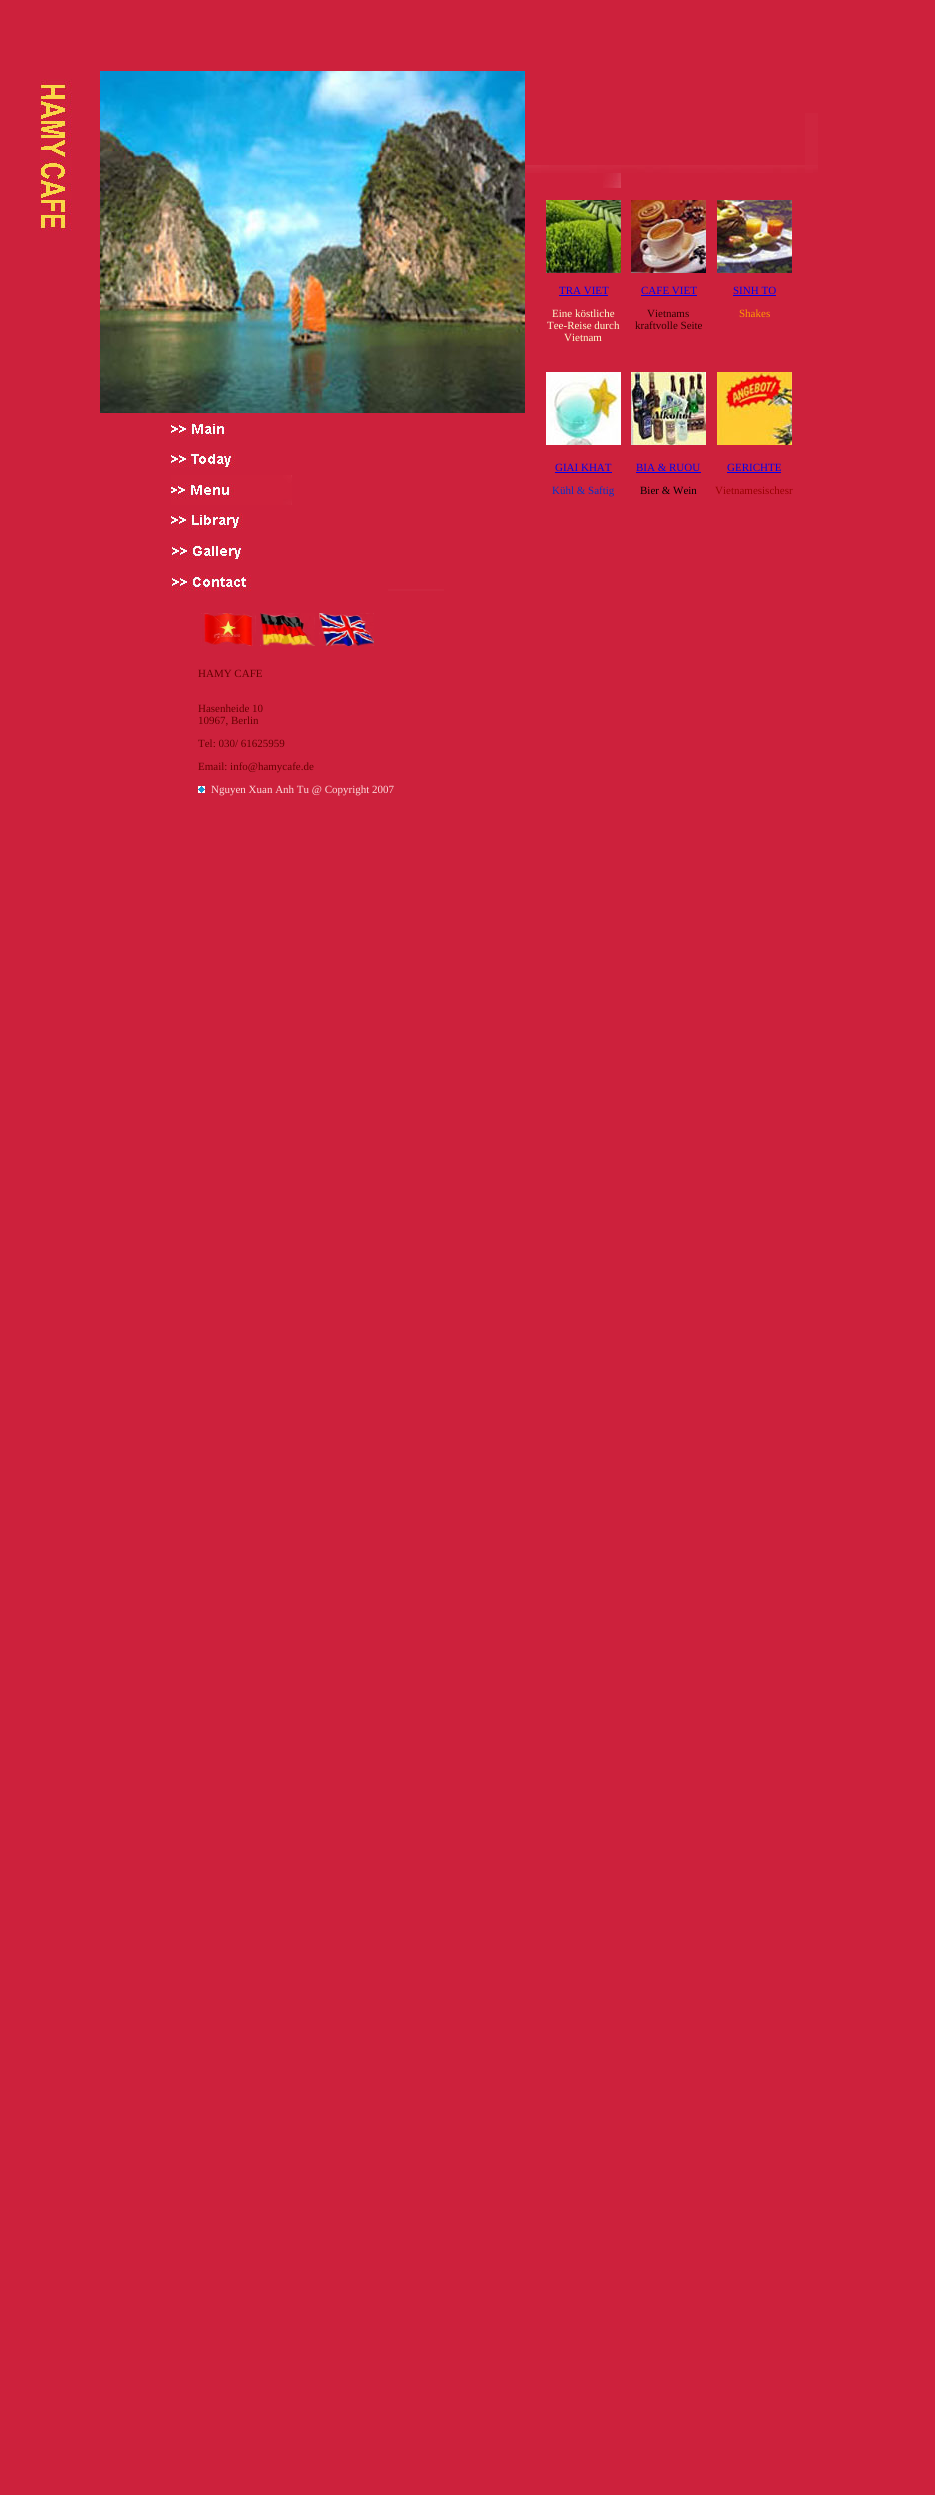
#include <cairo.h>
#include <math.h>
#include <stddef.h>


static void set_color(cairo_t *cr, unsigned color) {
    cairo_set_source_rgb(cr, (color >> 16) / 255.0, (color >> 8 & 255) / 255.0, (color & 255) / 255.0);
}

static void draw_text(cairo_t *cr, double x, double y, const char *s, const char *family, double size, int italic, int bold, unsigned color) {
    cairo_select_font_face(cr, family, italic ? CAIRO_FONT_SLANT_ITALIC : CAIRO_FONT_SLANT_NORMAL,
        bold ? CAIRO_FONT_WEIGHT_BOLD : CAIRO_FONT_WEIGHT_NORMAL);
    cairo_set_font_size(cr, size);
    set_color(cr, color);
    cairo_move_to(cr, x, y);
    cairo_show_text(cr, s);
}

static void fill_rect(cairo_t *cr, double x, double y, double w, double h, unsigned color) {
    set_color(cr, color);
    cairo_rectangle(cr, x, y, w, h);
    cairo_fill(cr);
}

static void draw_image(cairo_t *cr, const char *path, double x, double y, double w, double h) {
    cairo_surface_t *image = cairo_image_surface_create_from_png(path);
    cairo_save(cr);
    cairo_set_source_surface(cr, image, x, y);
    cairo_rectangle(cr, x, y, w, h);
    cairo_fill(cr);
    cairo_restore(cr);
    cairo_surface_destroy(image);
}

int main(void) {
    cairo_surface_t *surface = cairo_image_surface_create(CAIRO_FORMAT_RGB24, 935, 2495);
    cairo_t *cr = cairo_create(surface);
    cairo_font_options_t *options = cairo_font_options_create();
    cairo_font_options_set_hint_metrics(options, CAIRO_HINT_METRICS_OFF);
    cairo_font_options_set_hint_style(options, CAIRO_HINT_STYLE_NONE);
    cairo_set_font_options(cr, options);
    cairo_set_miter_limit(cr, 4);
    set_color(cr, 0xCD213C);
    cairo_paint(cr);
    draw_image(cr, "assets/img1.png", 40, 79, 32, 152);
    fill_rect(cr, 805, 113, 13, 52, 0xCE253F);
    draw_image(cr, "assets/img2.png", 525, 165, 293, 8);
    draw_image(cr, "assets/img3.png", 603, 173, 18, 15);
    draw_image(cr, "assets/img4.png", 546, 200, 75, 73);
    draw_text(cr, 559, 294, "TRA VIET", "Liberation Serif", 11, 0, 0, 0x0000EE);
    fill_rect(cr, 559, 295, 49, 1, 0x0000EE);
    draw_text(cr, 552, 317, "Eine köstliche", "Liberation Serif", 11, 0, 0, 0xFDFCCC);
    draw_text(cr, 547, 329, "Tee-Reise durch", "Liberation Serif", 11, 0, 0, 0xFDFCCC);
    draw_text(cr, 564, 341, "Vietnam", "Liberation Serif", 11, 0, 0, 0xFDFCCC);
    draw_image(cr, "assets/img5.png", 631, 200, 75, 73);
    draw_text(cr, 641, 294, "CAFE VIET", "Liberation Serif", 11, 0, 0, 0x0000EE);
    fill_rect(cr, 641, 295, 56, 1, 0x0000EE);
    draw_text(cr, 647, 317, "Vietnams", "Liberation Serif", 11, 0, 0, 0x330000);
    draw_text(cr, 635, 329, "kraftvolle Seite", "Liberation Serif", 11, 0, 0, 0x330000);
    draw_image(cr, "assets/img6.png", 717, 200, 75, 73);
    draw_text(cr, 733, 294, "SINH TO", "Liberation Serif", 11, 0, 0, 0x0000EE);
    fill_rect(cr, 733, 295, 43, 1, 0x0000EE);
    draw_text(cr, 739, 317, "Shakes", "Liberation Serif", 11, 0, 0, 0xFF9900);
    draw_image(cr, "assets/img7.png", 546, 372, 75, 73);
    draw_text(cr, 555, 471, "GIAI KHAT", "Liberation Serif", 11, 0, 0, 0x0000EE);
    fill_rect(cr, 555, 472, 57, 1, 0x0000EE);
    draw_text(cr, 552, 494, "Kühl & Saftig", "Liberation Serif", 11, 0, 0, 0x0033CC);
    draw_image(cr, "assets/img8.png", 631, 372, 75, 73);
    draw_text(cr, 636, 471, "BIA & RUOU", "Liberation Serif", 11, 0, 0, 0x0000EE);
    fill_rect(cr, 636, 472, 65, 1, 0x0000EE);
    draw_text(cr, 640, 494, "Bier & Wein", "Liberation Serif", 11, 0, 0, 0x000000);
    draw_image(cr, "assets/img9.png", 717, 372, 75, 73);
    draw_text(cr, 727, 471, "GERICHTE", "Liberation Serif", 11, 0, 0, 0x0000EE);
    fill_rect(cr, 727, 472, 54, 1, 0x0000EE);
    draw_text(cr, 715, 494, "Vietnamesischesr", "Liberation Serif", 11, 0, 0, 0x990000);
    draw_image(cr, "assets/img10.png", 100, 71, 425, 342);
    draw_image(cr, "assets/img11.png", 171, 421, 56, 16);
    fill_rect(cr, 388, 589, 56, 2, 0xCE2640);
    draw_image(cr, "assets/img12.png", 171, 452, 64, 16);
    draw_image(cr, "assets/img13.png", 171, 475, 121, 30);
    draw_image(cr, "assets/img14.png", 171, 513, 72, 16);
    draw_image(cr, "assets/img15.png", 171, 544, 72, 16);
    draw_image(cr, "assets/img16.png", 171, 575, 80, 16);
    draw_image(cr, "assets/img17.png", 201, 613, 55, 33);
    draw_image(cr, "assets/img18.png", 260, 613, 55, 33);
    draw_image(cr, "assets/img19.png", 319, 613, 55, 33);
    draw_text(cr, 198, 677, "HAMY CAFE", "Liberation Serif", 11, 0, 0, 0x660000);
    draw_text(cr, 198, 712, "Hasenheide 10", "Liberation Serif", 11, 0, 0, 0x660000);
    draw_text(cr, 198, 724, "10967, Berlin", "Liberation Serif", 11, 0, 0, 0x660000);
    draw_text(cr, 198, 747, "Tel: 030/ 61625959", "Liberation Serif", 11, 0, 0, 0x660000);
    draw_text(cr, 198, 770, "Email: info@hamycafe.de", "Liberation Serif", 11, 0, 0, 0x660000);
    draw_image(cr, "assets/img20.png", 198, 786, 7, 7);
    draw_text(cr, 211, 793, "Nguyen Xuan Anh Tu @ Copyright 2007", "Liberation Serif", 11, 0, 0, 0xFCDBDB);
    cairo_surface_write_to_png(surface, "output.png");
    cairo_font_options_destroy(options);
    cairo_destroy(cr);
    cairo_surface_destroy(surface);
    return 0;
}
